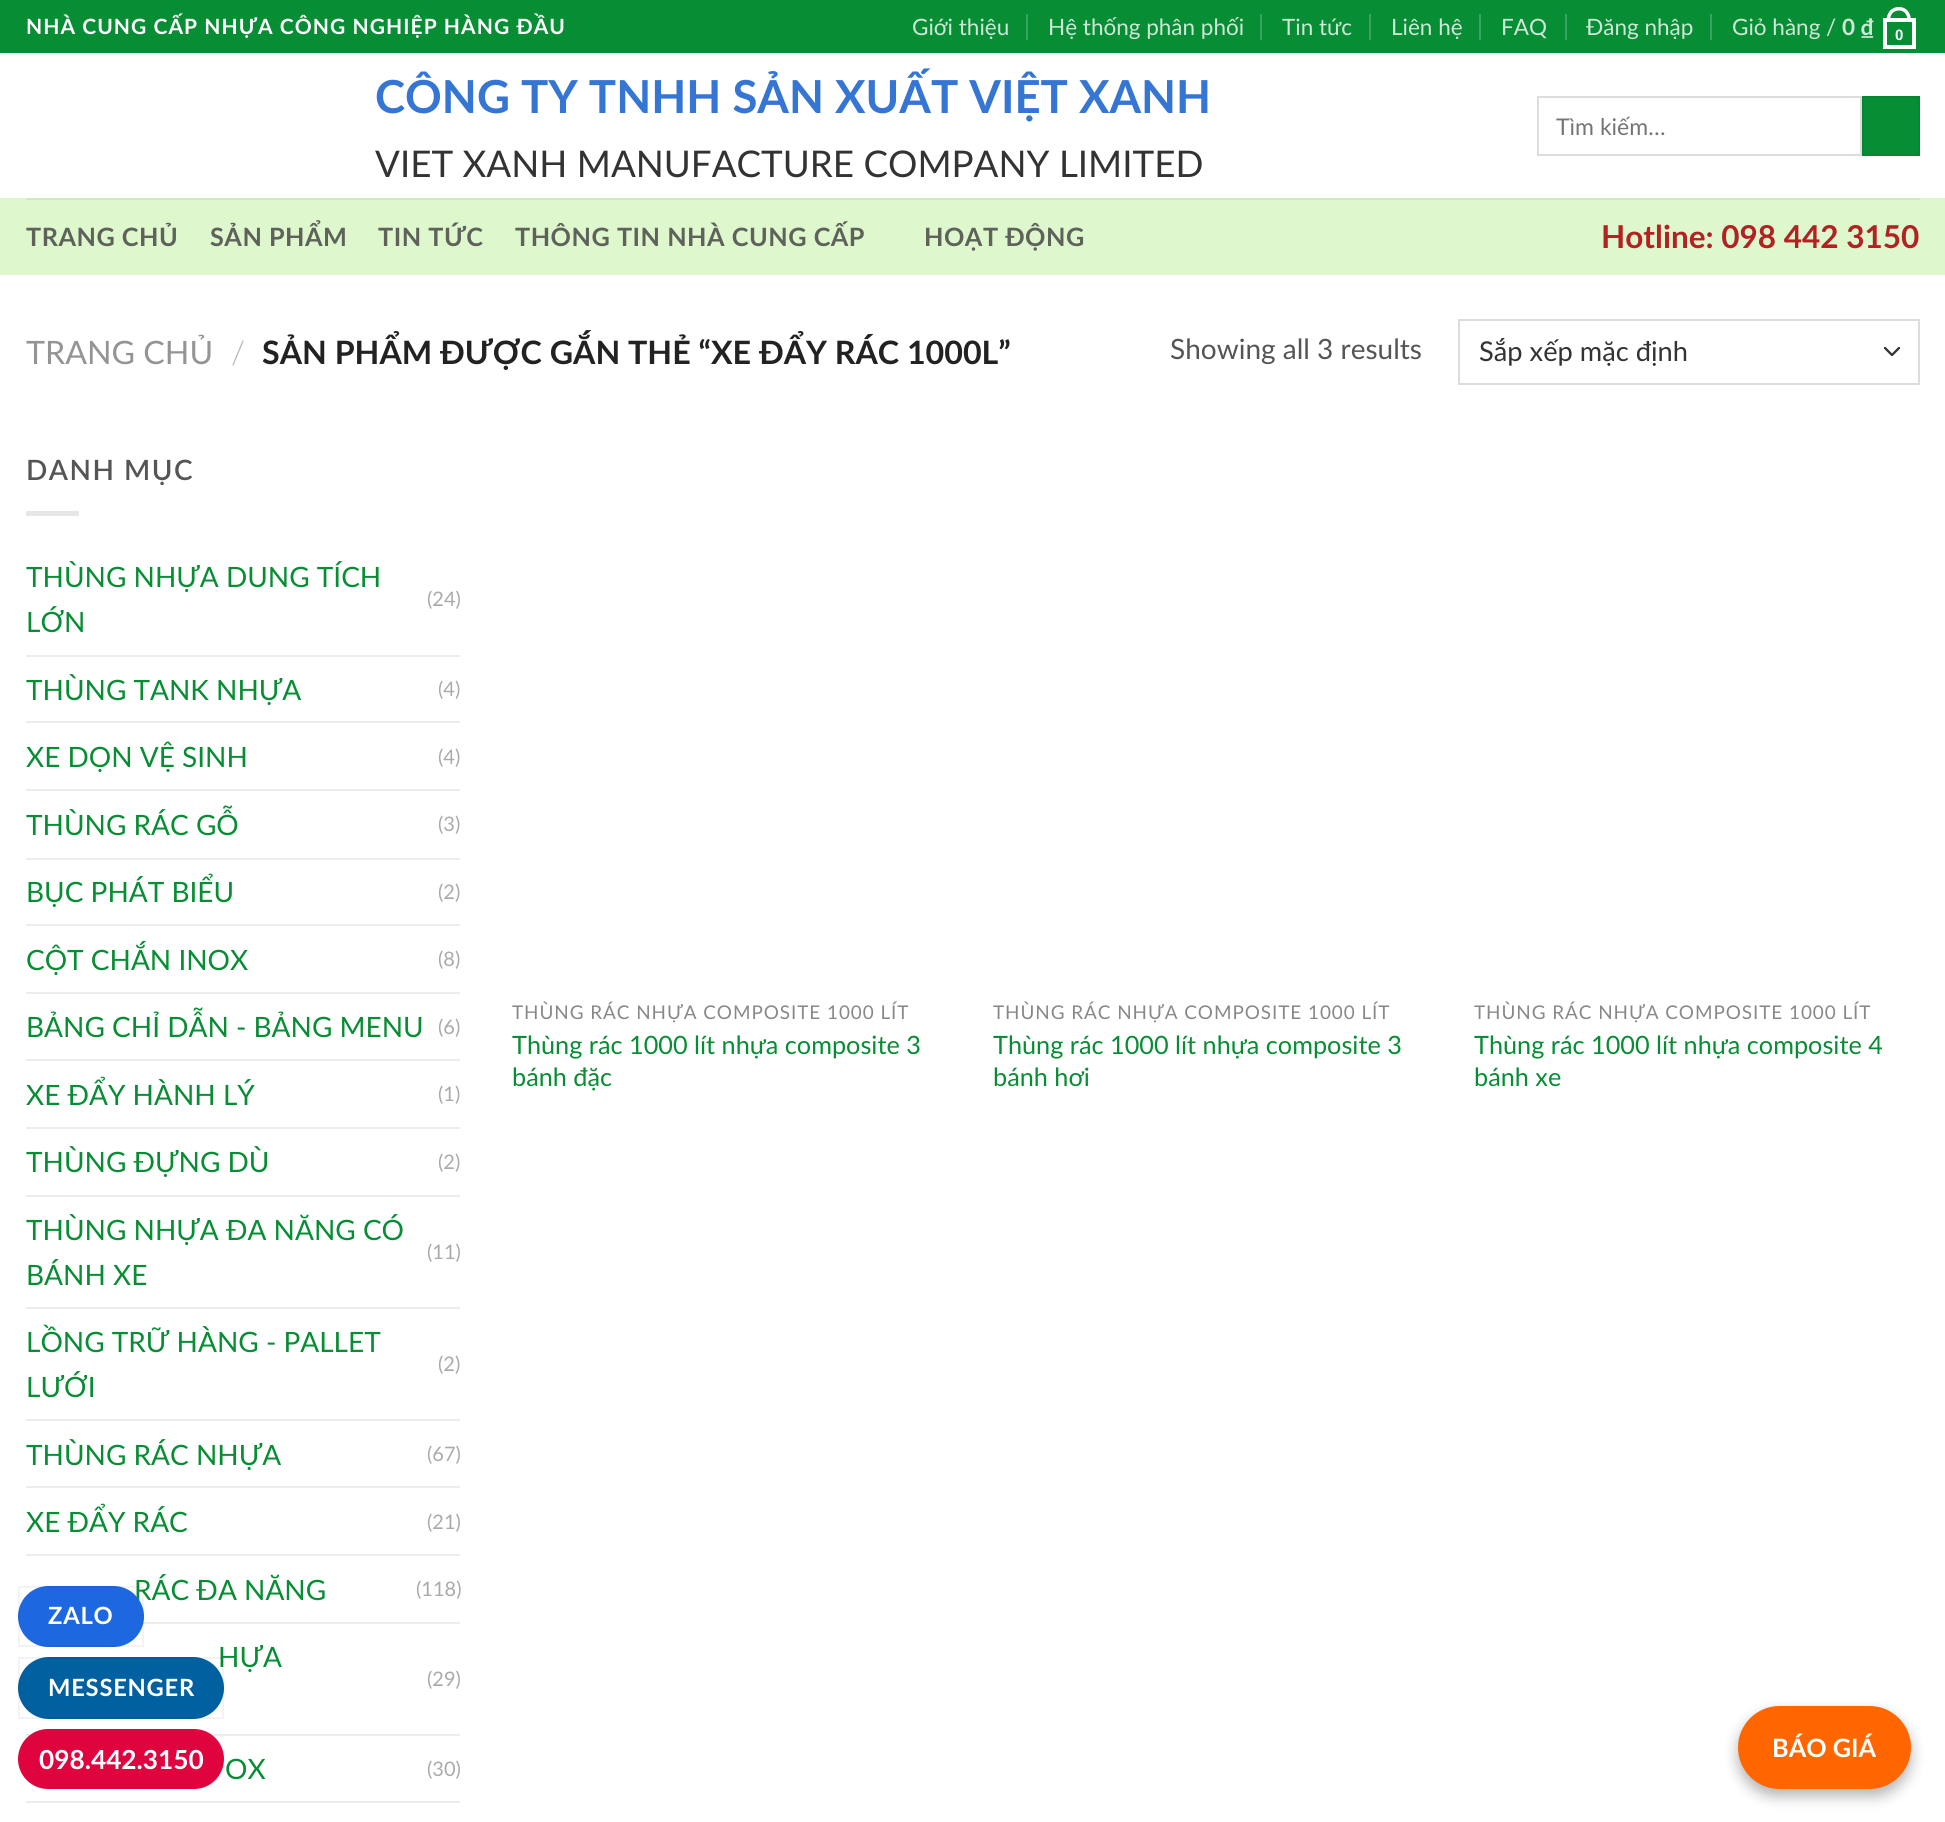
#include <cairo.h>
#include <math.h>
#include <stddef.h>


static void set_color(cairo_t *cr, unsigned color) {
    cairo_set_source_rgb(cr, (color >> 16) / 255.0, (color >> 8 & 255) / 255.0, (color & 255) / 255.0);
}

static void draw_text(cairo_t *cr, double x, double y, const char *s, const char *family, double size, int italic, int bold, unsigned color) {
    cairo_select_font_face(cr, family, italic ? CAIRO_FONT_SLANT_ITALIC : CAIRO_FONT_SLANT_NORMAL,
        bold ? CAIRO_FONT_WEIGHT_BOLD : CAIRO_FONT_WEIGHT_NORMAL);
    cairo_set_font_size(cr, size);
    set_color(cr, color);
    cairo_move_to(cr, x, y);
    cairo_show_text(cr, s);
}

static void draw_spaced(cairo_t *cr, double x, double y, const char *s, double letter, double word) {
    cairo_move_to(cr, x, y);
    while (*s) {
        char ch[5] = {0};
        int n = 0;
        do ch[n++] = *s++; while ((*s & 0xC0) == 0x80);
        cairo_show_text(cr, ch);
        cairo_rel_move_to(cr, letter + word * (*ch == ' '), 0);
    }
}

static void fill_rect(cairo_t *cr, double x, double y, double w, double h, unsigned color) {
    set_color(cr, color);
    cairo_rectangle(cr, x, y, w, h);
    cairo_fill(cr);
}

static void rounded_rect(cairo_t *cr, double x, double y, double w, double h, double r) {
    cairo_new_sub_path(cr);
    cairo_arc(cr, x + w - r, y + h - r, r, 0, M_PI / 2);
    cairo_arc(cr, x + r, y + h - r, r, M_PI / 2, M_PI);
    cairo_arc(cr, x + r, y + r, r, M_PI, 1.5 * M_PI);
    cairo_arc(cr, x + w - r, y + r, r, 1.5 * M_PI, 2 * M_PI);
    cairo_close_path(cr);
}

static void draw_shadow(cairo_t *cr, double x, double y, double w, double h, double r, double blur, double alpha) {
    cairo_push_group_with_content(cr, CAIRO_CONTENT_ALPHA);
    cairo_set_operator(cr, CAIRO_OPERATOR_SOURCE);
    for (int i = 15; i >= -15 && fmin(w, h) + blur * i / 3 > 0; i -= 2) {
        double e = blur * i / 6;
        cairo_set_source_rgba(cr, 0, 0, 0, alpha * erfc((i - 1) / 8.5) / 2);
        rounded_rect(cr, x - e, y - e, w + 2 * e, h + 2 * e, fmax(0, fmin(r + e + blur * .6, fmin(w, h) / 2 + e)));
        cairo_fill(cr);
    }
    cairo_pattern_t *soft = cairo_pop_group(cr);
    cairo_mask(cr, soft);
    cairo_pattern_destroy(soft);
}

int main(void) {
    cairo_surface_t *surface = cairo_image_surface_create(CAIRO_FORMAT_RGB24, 1945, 1822);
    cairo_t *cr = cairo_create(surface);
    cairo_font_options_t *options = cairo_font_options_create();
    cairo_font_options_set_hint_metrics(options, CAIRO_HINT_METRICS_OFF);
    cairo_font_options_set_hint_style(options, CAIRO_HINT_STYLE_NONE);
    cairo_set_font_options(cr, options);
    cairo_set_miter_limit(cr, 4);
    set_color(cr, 0xFFFFFF);
    cairo_paint(cr);
    fill_rect(cr, 0, 0, 1945, 53, 0x078D34);
    cairo_select_font_face(cr, "Lato", CAIRO_FONT_SLANT_NORMAL, CAIRO_FONT_WEIGHT_BOLD);
    cairo_set_font_size(cr, 21);
    set_color(cr, 0xFFFFFF);
    draw_spaced(cr, 26, 34, "NHÀ CUNG CẤP NHỰA CÔNG NGHIỆP HÀNG ĐẦU", 1.05, 0);
    draw_text(cr, 912, 35, "Giới thiệu", "Lato", 22.5, 0, 0, 0xCDE8D6);
    fill_rect(cr, 1026, 14, 2, 26, 0x39A45D);
    draw_text(cr, 1048, 35, "Hệ thống phân phối", "Lato", 22.5, 0, 0, 0xCDE8D6);
    fill_rect(cr, 1260, 14, 2, 26, 0x39A45D);
    draw_text(cr, 1282, 35, "Tin tức", "Lato", 22.5, 0, 0, 0xCDE8D6);
    fill_rect(cr, 1369, 14, 2, 26, 0x39A45D);
    draw_text(cr, 1391, 35, "Liên hệ", "Lato", 22.5, 0, 0, 0xCDE8D6);
    fill_rect(cr, 1479, 14, 2, 26, 0x39A45D);
    draw_text(cr, 1501, 35, "FAQ", "Lato", 22.5, 0, 0, 0xCDE8D6);
    fill_rect(cr, 1565, 14, 2, 26, 0x39A45D);
    draw_text(cr, 1586, 35, "Đăng nhập", "Lato", 22.5, 0, 0, 0xCDE8D6);
    fill_rect(cr, 1710, 14, 2, 26, 0x39A45D);
    draw_text(cr, 1732, 35, "Giỏ hàng /", "Lato", 22.5, 0, 0, 0xCDE8D6);
    draw_text(cr, 1842, 35, "0 ₫", "Lato", 22.5, 0, 1, 0xCDE8D6);
    cairo_rectangle(cr, 1885, 20, 29, 27);
    set_color(cr, 0xFFFFFF);
    cairo_set_line_width(cr, 4);
    cairo_stroke(cr);
    cairo_set_fill_rule(cr, CAIRO_FILL_RULE_EVEN_ODD);
    cairo_new_path(cr);
    cairo_move_to(cr, 1899, 7);
    cairo_curve_to(cr, 1907, 7, 1911, 13.5, 1911, 21);
    cairo_line_to(cr, 1886.5, 21);
    cairo_curve_to(cr, 1886.5, 13.5, 1890.5, 7, 1899, 7);
    cairo_close_path(cr);
    cairo_move_to(cr, 1899, 10.5);
    cairo_curve_to(cr, 1905, 10.5, 1907.5, 15.5, 1907.5, 21);
    cairo_line_to(cr, 1890, 21);
    cairo_curve_to(cr, 1890, 15.5, 1892.5, 10.5, 1899, 10.5);
    cairo_close_path(cr);
    cairo_fill(cr);
    draw_text(cr, 1895, 40, "0", "Liberation Sans", 15, 0, 1, 0xFFFFFF);
    draw_text(cr, 375, 113, "CÔNG TY TNHH SẢN XUẤT VIỆT XANH", "Lato", 45.5, 0, 1, 0x3575D3);
    draw_text(cr, 375, 177, "VIET XANH MANUFACTURE COMPANY LIMITED", "Lato", 36.75, 0, 0, 0x333333);
    cairo_rectangle(cr, 1538, 97, 323, 58);
    set_color(cr, 0xDDDDDD);
    cairo_set_line_width(cr, 2);
    cairo_stroke(cr);
    draw_text(cr, 1556, 135, "Tìm kiếm…", "Lato", 23, 0, 0, 0x757575);
    set_color(cr, 0x078D34);
    cairo_rectangle(cr, 1863, 97, 56, 58);
    cairo_fill_preserve(cr);
    set_color(cr, 0x078631);
    cairo_stroke(cr);
    fill_rect(cr, 0, 198, 1945, 77, 0xDEF7CC);
    fill_rect(cr, 26, 198, 1894, 2, 0xD0E7C0);
    cairo_select_font_face(cr, "Lato", CAIRO_FONT_SLANT_NORMAL, CAIRO_FONT_WEIGHT_BOLD);
    cairo_set_font_size(cr, 25.25);
    set_color(cr, 0x5E625B);
    draw_spaced(cr, 26, 246, "TRANG CHỦ", 0.5, 0);
    draw_spaced(cr, 210, 246, "SẢN PHẨM", 0.5, 0);
    draw_spaced(cr, 378, 246, "TIN TỨC", 0.5, 0);
    draw_spaced(cr, 515, 246, "THÔNG TIN NHÀ CUNG CẤP", 0.5, 0);
    draw_spaced(cr, 924, 246, "HOẠT ĐỘNG", 0.5, 0);
    draw_text(cr, 1601, 248, "Hotline: 098 442 3150", "Lato", 31.5, 0, 1, 0xB22222);
    draw_text(cr, 26, 364, "TRANG CHỦ", "Lato", 32.2, 0, 0, 0x949494);
    draw_text(cr, 231, 364, "/", "Lato Light", 32.2, 0, 0, 0xB2B2B2);
    draw_text(cr, 262, 364, "SẢN PHẨM ĐƯỢC GẮN THẺ “XE ĐẨY RÁC 1000L”", "Lato", 32.2, 0, 1, 0x222222);
    draw_text(cr, 1170, 359, "Showing all 3 results", "Lato", 28, 0, 0, 0x555555);
    cairo_new_path(cr);
    cairo_move_to(cr, 1885, 348);
    cairo_line_to(cr, 1892, 355);
    cairo_line_to(cr, 1899, 348);
    set_color(cr, 0x333333);
    cairo_set_line_width(cr, 2.3);
    cairo_set_line_cap(cr, CAIRO_LINE_CAP_ROUND);
    cairo_set_line_join(cr, CAIRO_LINE_JOIN_ROUND);
    cairo_stroke(cr);
    cairo_rectangle(cr, 1459, 320, 460, 64);
    set_color(cr, 0xDDDDDD);
    cairo_set_line_width(cr, 2);
    cairo_set_line_cap(cr, CAIRO_LINE_CAP_BUTT);
    cairo_set_line_join(cr, CAIRO_LINE_JOIN_MITER);
    cairo_stroke(cr);
    draw_text(cr, 1479, 361, "Sắp xếp mặc định", "Lato", 27.25, 0, 0, 0x333333);
    cairo_select_font_face(cr, "Lato SemiBold", CAIRO_FONT_SLANT_NORMAL, CAIRO_FONT_WEIGHT_NORMAL);
    cairo_set_font_size(cr, 28);
    set_color(cr, 0x555555);
    draw_spaced(cr, 26, 480, "DANH MỤC", 1.5, 0);
    fill_rect(cr, 26, 511, 53, 5, 0xE6E6E6);
    draw_text(cr, 26, 587, "THÙNG NHỰA DUNG TÍCH", "Lato", 28, 0, 0, 0x078D34);
    draw_text(cr, 26, 632, "LỚN", "Lato", 28, 0, 0, 0x078D34);
    draw_text(cr, 427, 606, "(24)", "Lato", 20, 0, 0, 0xAAAAAA);
    fill_rect(cr, 26, 655, 434, 2, 0xECECEC);
    draw_text(cr, 26, 700, "THÙNG TANK NHỰA", "Lato", 28, 0, 0, 0x078D34);
    draw_text(cr, 438, 696, "(4)", "Lato", 20, 0, 0, 0xAAAAAA);
    fill_rect(cr, 26, 721, 434, 2, 0xECECEC);
    draw_text(cr, 26, 767, "XE DỌN VỆ SINH", "Lato", 28, 0, 0, 0x078D34);
    draw_text(cr, 438, 764, "(4)", "Lato", 20, 0, 0, 0xAAAAAA);
    fill_rect(cr, 26, 789, 434, 2, 0xECECEC);
    draw_text(cr, 26, 835, "THÙNG RÁC GỖ", "Lato", 28, 0, 0, 0x078D34);
    draw_text(cr, 438, 831, "(3)", "Lato", 20, 0, 0, 0xAAAAAA);
    fill_rect(cr, 26, 858, 434, 2, 0xECECEC);
    draw_text(cr, 26, 902, "BỤC PHÁT BIỂU", "Lato", 28, 0, 0, 0x078D34);
    draw_text(cr, 438, 899, "(2)", "Lato", 20, 0, 0, 0xAAAAAA);
    fill_rect(cr, 26, 924, 434, 2, 0xECECEC);
    draw_text(cr, 26, 970, "CỘT CHẮN INOX", "Lato", 28, 0, 0, 0x078D34);
    draw_text(cr, 438, 966, "(8)", "Lato", 20, 0, 0, 0xAAAAAA);
    fill_rect(cr, 26, 992, 434, 2, 0xECECEC);
    draw_text(cr, 26, 1037, "BẢNG CHỈ DẪN - BẢNG MENU", "Lato", 28, 0, 0, 0x078D34);
    draw_text(cr, 438, 1034, "(6)", "Lato", 20, 0, 0, 0xAAAAAA);
    fill_rect(cr, 26, 1059, 434, 2, 0xECECEC);
    draw_text(cr, 26, 1105, "XE ĐẨY HÀNH LÝ", "Lato", 28, 0, 0, 0x078D34);
    draw_text(cr, 438, 1101, "(1)", "Lato", 20, 0, 0, 0xAAAAAA);
    fill_rect(cr, 26, 1127, 434, 2, 0xECECEC);
    draw_text(cr, 26, 1172, "THÙNG ĐỰNG DÙ", "Lato", 28, 0, 0, 0x078D34);
    draw_text(cr, 438, 1169, "(2)", "Lato", 20, 0, 0, 0xAAAAAA);
    fill_rect(cr, 26, 1195, 434, 2, 0xECECEC);
    draw_text(cr, 26, 1240, "THÙNG NHỰA ĐA NĂNG CÓ", "Lato", 28, 0, 0, 0x078D34);
    draw_text(cr, 26, 1285, "BÁNH XE", "Lato", 28, 0, 0, 0x078D34);
    draw_text(cr, 427, 1259, "(11)", "Lato", 20, 0, 0, 0xAAAAAA);
    fill_rect(cr, 26, 1307, 434, 2, 0xECECEC);
    draw_text(cr, 26, 1352, "LỒNG TRỮ HÀNG - PALLET", "Lato", 28, 0, 0, 0x078D34);
    draw_text(cr, 26, 1397, "LƯỚI", "Lato", 28, 0, 0, 0x078D34);
    draw_text(cr, 438, 1371, "(2)", "Lato", 20, 0, 0, 0xAAAAAA);
    fill_rect(cr, 26, 1419, 434, 2, 0xECECEC);
    draw_text(cr, 26, 1465, "THÙNG RÁC NHỰA", "Lato", 28, 0, 0, 0x078D34);
    draw_text(cr, 427, 1461, "(67)", "Lato", 20, 0, 0, 0xAAAAAA);
    fill_rect(cr, 26, 1486, 434, 2, 0xECECEC);
    draw_text(cr, 26, 1532, "XE ĐẨY RÁC", "Lato", 28, 0, 0, 0x078D34);
    draw_text(cr, 427, 1529, "(21)", "Lato", 20, 0, 0, 0xAAAAAA);
    fill_rect(cr, 26, 1554, 434, 2, 0xECECEC);
    draw_text(cr, 134, 1600, "RÁC ĐA NĂNG", "Lato", 28, 0, 0, 0x078D34);
    draw_text(cr, 416, 1596, "(118)", "Lato", 20, 0, 0, 0xAAAAAA);
    fill_rect(cr, 143, 1622, 317, 2, 0xECECEC);
    draw_text(cr, 218, 1667, "HỰA", "Lato", 28, 0, 0, 0x078D34);
    draw_text(cr, 427, 1686, "(29)", "Lato", 20, 0, 0, 0xAAAAAA);
    fill_rect(cr, 26, 1734, 434, 2, 0xECECEC);
    draw_text(cr, 225, 1779, "OX", "Lato", 28, 0, 0, 0x078D34);
    draw_text(cr, 427, 1776, "(30)", "Lato", 20, 0, 0, 0xAAAAAA);
    fill_rect(cr, 26, 1801, 434, 2, 0xECECEC);
    cairo_set_font_size(cr, 18.9);
    set_color(cr, 0x888888);
    draw_spaced(cr, 512, 1019, "THÙNG RÁC NHỰA COMPOSITE 1000 LÍT", 0.95, 0);
    draw_text(cr, 512, 1054, "Thùng rác 1000 lít nhựa composite 3", "Lato", 25.25, 0, 0, 0x078D34);
    draw_text(cr, 512, 1086, "bánh đặc", "Lato", 25.25, 0, 0, 0x078D34);
    cairo_set_font_size(cr, 18.9);
    set_color(cr, 0x888888);
    draw_spaced(cr, 993, 1019, "THÙNG RÁC NHỰA COMPOSITE 1000 LÍT", 0.95, 0);
    draw_text(cr, 993, 1054, "Thùng rác 1000 lít nhựa composite 3", "Lato", 25.25, 0, 0, 0x078D34);
    draw_text(cr, 993, 1086, "bánh hơi", "Lato", 25.25, 0, 0, 0x078D34);
    cairo_set_font_size(cr, 18.9);
    set_color(cr, 0x888888);
    draw_spaced(cr, 1474, 1019, "THÙNG RÁC NHỰA COMPOSITE 1000 LÍT", 0.95, 0);
    draw_text(cr, 1474, 1054, "Thùng rác 1000 lít nhựa composite 4", "Lato", 25.25, 0, 0, 0x078D34);
    draw_text(cr, 1474, 1086, "bánh xe", "Lato", 25.25, 0, 0, 0x078D34);
    set_color(cr, 0x000000);
    draw_shadow(cr, 1738, 1713, 173, 83, 41.5, 7, 0.3);
    set_color(cr, 0xFF6600);
    rounded_rect(cr, 1738, 1706, 173, 83, 41.5);
    cairo_fill(cr);
    draw_text(cr, 1772, 1757, "BÁO GIÁ", "Lato", 25.25, 0, 1, 0xFFFFFF);
    set_color(cr, 0x1D68E0);
    rounded_rect(cr, 18, 1586, 126, 61, 30.5);
    cairo_fill(cr);
    cairo_rectangle(cr, 19, 1587, 124, 59);
    cairo_set_source_rgba(cr, 0, 0, 0, 0.05);
    cairo_stroke(cr);
    cairo_set_font_size(cr, 23.75);
    set_color(cr, 0xFFFFFF);
    draw_spaced(cr, 48, 1624, "ZALO", 0.75, 0);
    set_color(cr, 0x0160A0);
    rounded_rect(cr, 18, 1657, 206, 62, 31);
    cairo_fill(cr);
    cairo_rectangle(cr, 19, 1658, 204, 60);
    cairo_set_source_rgba(cr, 0, 0, 0, 0.05);
    cairo_stroke(cr);
    set_color(cr, 0xFFFFFF);
    draw_spaced(cr, 48, 1696, "MESSENGER", 0.75, 0);
    set_color(cr, 0xDF043E);
    rounded_rect(cr, 18, 1729, 206, 60, 30);
    cairo_fill(cr);
    draw_text(cr, 39, 1769, "098.442.3150", "Lato", 26.25, 0, 1, 0xFFFFFF);
    cairo_surface_write_to_png(surface, "output.png");
    cairo_font_options_destroy(options);
    cairo_destroy(cr);
    cairo_surface_destroy(surface);
    return 0;
}
